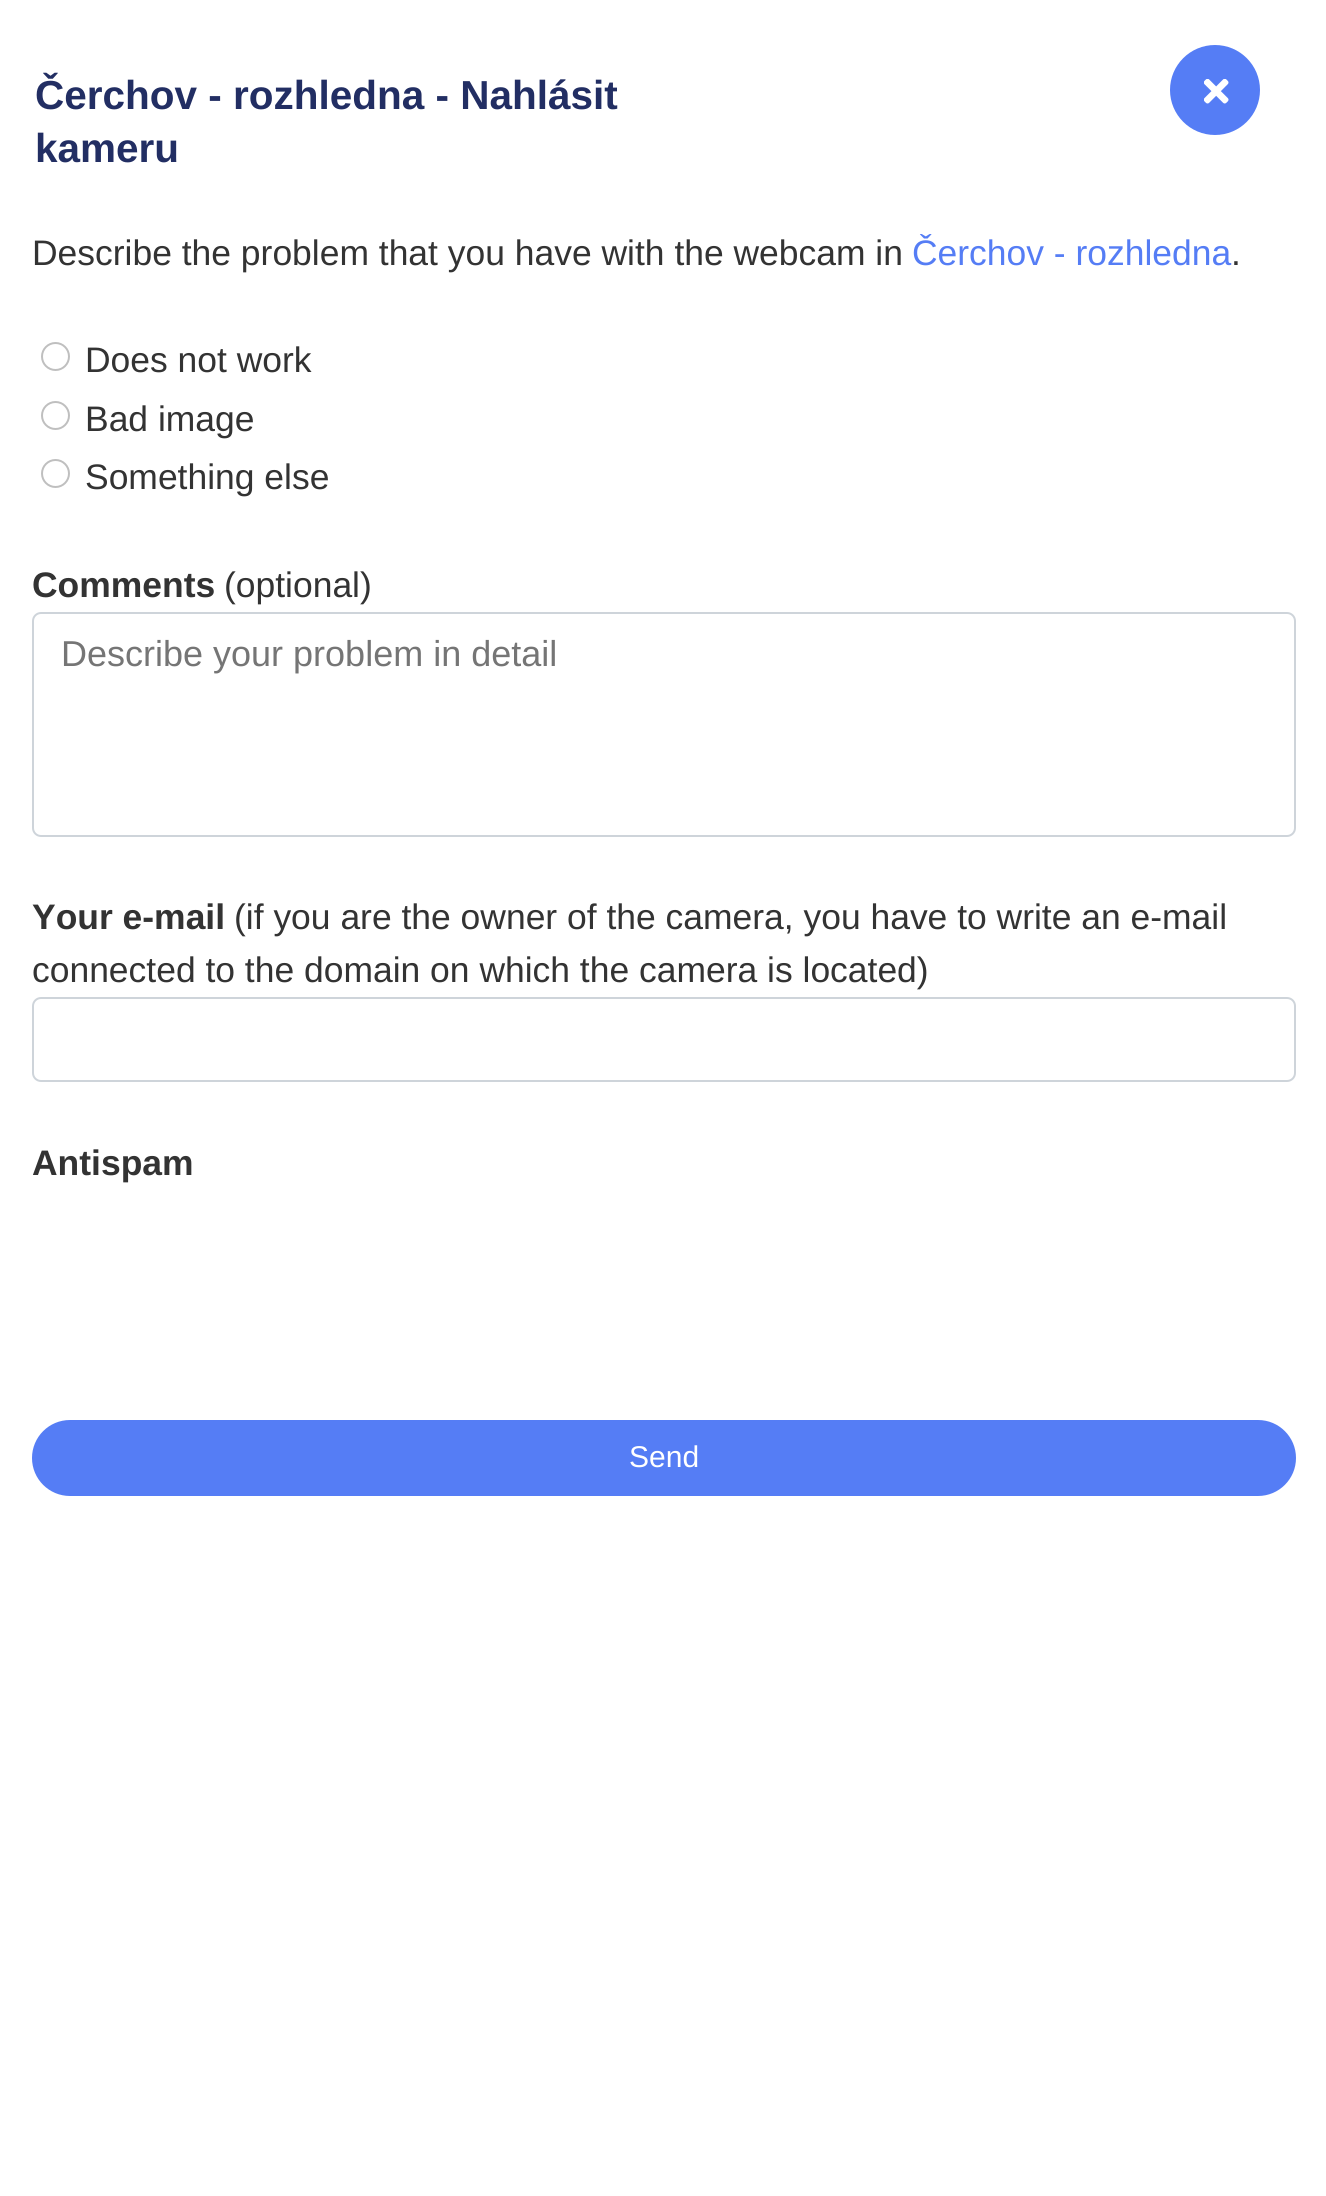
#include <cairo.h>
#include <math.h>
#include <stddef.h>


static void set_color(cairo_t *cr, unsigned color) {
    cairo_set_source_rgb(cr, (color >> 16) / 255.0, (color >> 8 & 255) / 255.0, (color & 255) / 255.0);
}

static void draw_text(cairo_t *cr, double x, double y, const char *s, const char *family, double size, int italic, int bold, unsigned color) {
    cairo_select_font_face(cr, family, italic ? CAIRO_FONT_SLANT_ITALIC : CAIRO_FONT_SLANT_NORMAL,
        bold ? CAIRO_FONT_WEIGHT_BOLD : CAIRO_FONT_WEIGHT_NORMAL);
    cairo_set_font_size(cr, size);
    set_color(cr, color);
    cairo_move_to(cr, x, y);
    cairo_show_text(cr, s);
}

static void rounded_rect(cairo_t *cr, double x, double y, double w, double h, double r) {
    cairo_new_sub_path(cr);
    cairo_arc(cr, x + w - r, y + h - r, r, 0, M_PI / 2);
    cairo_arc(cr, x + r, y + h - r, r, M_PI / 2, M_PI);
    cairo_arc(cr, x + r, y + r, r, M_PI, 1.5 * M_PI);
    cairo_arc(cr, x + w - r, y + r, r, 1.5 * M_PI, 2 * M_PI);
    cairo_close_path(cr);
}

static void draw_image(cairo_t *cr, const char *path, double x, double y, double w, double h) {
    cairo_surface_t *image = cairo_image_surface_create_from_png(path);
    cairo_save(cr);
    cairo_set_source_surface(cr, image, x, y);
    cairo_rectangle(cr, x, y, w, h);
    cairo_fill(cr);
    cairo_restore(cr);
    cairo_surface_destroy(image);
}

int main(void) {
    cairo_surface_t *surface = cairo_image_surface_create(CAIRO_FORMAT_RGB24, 1326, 2196);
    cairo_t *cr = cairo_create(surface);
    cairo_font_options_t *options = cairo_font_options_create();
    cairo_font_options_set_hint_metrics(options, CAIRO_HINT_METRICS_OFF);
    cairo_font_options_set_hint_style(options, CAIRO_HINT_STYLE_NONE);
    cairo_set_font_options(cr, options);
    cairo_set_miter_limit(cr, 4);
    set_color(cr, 0xFFFFFF);
    cairo_paint(cr);
    draw_text(cr, 35, 109, "Čerchov - rozhledna - Nahlásit", "Liberation Sans", 40.5, 0, 1, 0x222E63);
    draw_text(cr, 35, 162, "kameru", "Liberation Sans", 40.5, 0, 1, 0x222E63);
    set_color(cr, 0x557DF5);
    cairo_new_path(cr);
    cairo_arc(cr, 1215, 90, 45, 0, 2 * M_PI);
    cairo_fill(cr);
    draw_image(cr, "assets/img1.png", 1204, 79, 25, 25);
    draw_text(cr, 32, 265, "Describe the problem that you have with the webcam in", "Liberation Sans", 35.45, 0, 0, 0x333333);
    draw_text(cr, 912, 265, "Čerchov - rozhledna", "Liberation Sans", 35.45, 0, 0, 0x557DF5);
    draw_text(cr, 1231, 265, ".", "Liberation Sans", 35.45, 0, 0, 0x333333);
    cairo_new_path(cr);
    cairo_arc(cr, 55.5, 356.5, 13.5, 0, 2 * M_PI);
    set_color(cr, 0xBFBFBF);
    cairo_stroke(cr);
    draw_text(cr, 85, 372, "Does not work", "Liberation Sans", 35.45, 0, 0, 0x333333);
    cairo_new_path(cr);
    cairo_arc(cr, 55.5, 415.5, 13.5, 0, 2 * M_PI);
    set_color(cr, 0xBFBFBF);
    cairo_stroke(cr);
    draw_text(cr, 85, 431, "Bad image", "Liberation Sans", 35.45, 0, 0, 0x333333);
    cairo_new_path(cr);
    cairo_arc(cr, 55.5, 473.5, 13.5, 0, 2 * M_PI);
    set_color(cr, 0xBFBFBF);
    cairo_stroke(cr);
    draw_text(cr, 85, 489, "Something else", "Liberation Sans", 35.45, 0, 0, 0x333333);
    draw_text(cr, 32, 597, "Comments", "Liberation Sans", 35.45, 0, 1, 0x333333);
    draw_text(cr, 224, 597, "(optional)", "Liberation Sans", 35.45, 0, 0, 0x333333);
    rounded_rect(cr, 33, 613, 1262, 223, 8);
    set_color(cr, 0xCED4DA);
    cairo_stroke(cr);
    draw_text(cr, 61, 666, "Describe your problem in detail", "Liberation Sans", 36, 0, 0, 0x757575);
    draw_text(cr, 32, 929, "Your e-mail", "Liberation Sans", 35.45, 0, 1, 0x333333);
    draw_text(cr, 234, 929, "(if you are the owner of the camera, you have to write an e-mail", "Liberation Sans", 35.45, 0, 0, 0x333333);
    draw_text(cr, 32, 982, "connected to the domain on which the camera is located)", "Liberation Sans", 35.45, 0, 0, 0x333333);
    rounded_rect(cr, 33, 998, 1262, 83, 8);
    set_color(cr, 0xCED4DA);
    cairo_stroke(cr);
    draw_text(cr, 32, 1175, "Antispam", "Liberation Sans", 35.45, 0, 1, 0x333333);
    set_color(cr, 0x557DF5);
    rounded_rect(cr, 33, 1421, 1262, 74, 37);
    cairo_fill_preserve(cr);
    cairo_stroke(cr);
    draw_text(cr, 629, 1467, "Send", "Liberation Sans", 30, 0, 0, 0xFFFFFF);
    cairo_surface_write_to_png(surface, "output.png");
    cairo_font_options_destroy(options);
    cairo_destroy(cr);
    cairo_surface_destroy(surface);
    return 0;
}
